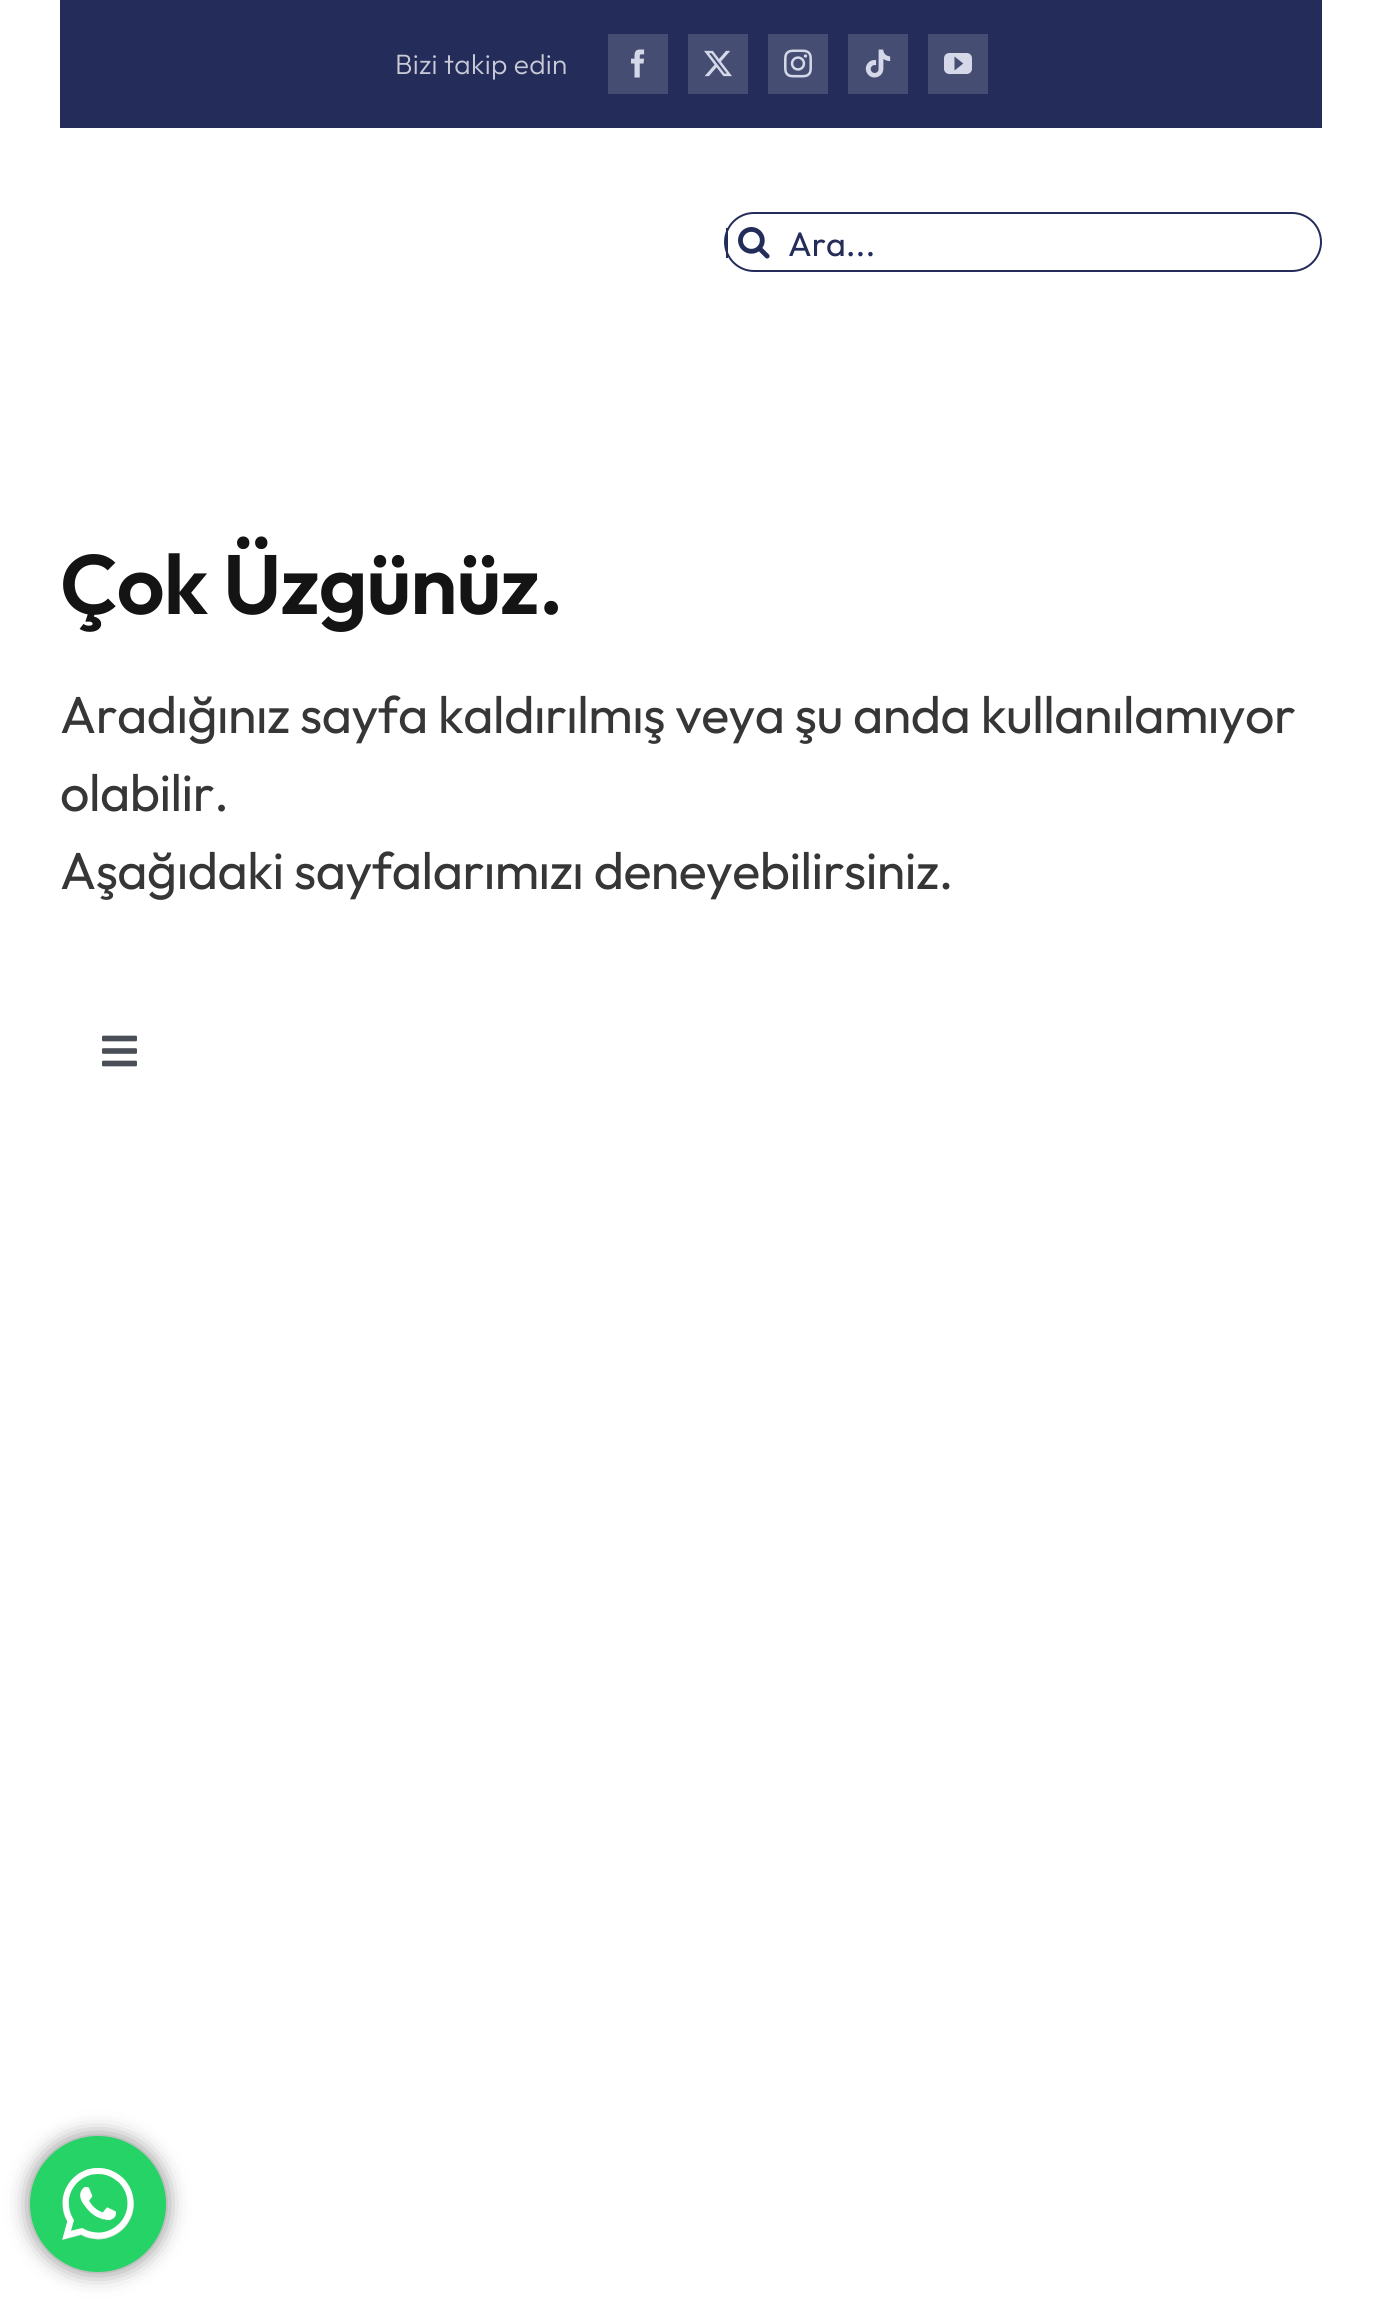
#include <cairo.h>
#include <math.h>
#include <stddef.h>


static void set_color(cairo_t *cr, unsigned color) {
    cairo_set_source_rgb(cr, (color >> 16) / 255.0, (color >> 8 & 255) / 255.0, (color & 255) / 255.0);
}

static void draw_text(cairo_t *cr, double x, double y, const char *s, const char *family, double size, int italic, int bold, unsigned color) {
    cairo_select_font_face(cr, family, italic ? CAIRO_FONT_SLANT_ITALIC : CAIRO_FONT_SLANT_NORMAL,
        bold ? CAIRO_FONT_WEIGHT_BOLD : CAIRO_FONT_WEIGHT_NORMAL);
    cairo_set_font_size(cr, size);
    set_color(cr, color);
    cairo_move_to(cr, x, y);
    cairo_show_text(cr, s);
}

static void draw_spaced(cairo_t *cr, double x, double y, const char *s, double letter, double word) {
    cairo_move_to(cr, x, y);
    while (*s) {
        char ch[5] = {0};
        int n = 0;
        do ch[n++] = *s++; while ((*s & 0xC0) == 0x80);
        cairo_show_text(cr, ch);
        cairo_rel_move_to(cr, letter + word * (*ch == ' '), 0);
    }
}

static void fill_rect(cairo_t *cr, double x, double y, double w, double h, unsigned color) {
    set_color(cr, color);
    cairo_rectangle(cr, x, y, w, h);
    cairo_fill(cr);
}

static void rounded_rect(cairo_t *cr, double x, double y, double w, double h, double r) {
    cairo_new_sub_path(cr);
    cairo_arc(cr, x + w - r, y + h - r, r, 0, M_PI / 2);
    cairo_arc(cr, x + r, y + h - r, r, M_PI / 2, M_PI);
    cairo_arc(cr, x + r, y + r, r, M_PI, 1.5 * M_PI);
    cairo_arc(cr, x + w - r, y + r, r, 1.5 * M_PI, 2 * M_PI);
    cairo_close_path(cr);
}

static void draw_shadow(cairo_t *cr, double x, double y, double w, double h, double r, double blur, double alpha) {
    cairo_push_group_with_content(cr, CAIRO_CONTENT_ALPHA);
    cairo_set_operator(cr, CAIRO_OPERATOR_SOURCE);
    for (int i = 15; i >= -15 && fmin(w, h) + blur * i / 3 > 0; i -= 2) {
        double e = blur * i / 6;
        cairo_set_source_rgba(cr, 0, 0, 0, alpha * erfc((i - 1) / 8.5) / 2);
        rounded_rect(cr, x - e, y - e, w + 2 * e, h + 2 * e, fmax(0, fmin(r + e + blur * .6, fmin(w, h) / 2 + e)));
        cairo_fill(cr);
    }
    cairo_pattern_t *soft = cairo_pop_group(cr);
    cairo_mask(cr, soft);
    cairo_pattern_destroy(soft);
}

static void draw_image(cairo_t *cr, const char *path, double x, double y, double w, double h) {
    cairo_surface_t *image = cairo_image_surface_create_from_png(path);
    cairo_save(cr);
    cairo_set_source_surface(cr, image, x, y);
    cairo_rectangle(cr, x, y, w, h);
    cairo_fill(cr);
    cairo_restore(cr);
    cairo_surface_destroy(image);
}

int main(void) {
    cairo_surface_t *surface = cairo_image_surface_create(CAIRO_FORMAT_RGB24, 1381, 2302);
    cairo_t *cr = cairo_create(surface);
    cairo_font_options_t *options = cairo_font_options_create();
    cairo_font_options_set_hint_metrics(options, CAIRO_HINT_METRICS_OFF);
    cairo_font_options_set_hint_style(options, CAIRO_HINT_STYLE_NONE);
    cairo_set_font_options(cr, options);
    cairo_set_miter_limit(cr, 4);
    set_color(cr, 0xFFFFFF);
    cairo_paint(cr);
    fill_rect(cr, 60, 0, 1262, 128, 0x242D5A);
    cairo_select_font_face(cr, "Outfit Light", CAIRO_FONT_SLANT_NORMAL, CAIRO_FONT_WEIGHT_NORMAL);
    cairo_set_font_size(cr, 28);
    set_color(cr, 0xC8CBD6);
    draw_spaced(cr, 395, 74, "Bizi takip edin", 0.25, 0);
    fill_rect(cr, 608, 34, 60, 60, 0x454D73);
    draw_image(cr, "assets/img1.png", 631, 49, 14, 29);
    fill_rect(cr, 688, 34, 60, 60, 0x454D73);
    draw_image(cr, "assets/img2.png", 704, 50, 28, 27);
    fill_rect(cr, 768, 34, 60, 60, 0x454D73);
    draw_image(cr, "assets/img3.png", 784, 49, 28, 29);
    fill_rect(cr, 848, 34, 60, 60, 0x454D73);
    draw_image(cr, "assets/img4.png", 865, 49, 26, 29);
    fill_rect(cr, 928, 34, 60, 60, 0x454D73);
    draw_image(cr, "assets/img5.png", 944, 53, 28, 21);
    rounded_rect(cr, 725, 213, 596, 58, 29);
    set_color(cr, 0x242D5A);
    cairo_stroke(cr);
    draw_image(cr, "assets/img6.png", 738, 227, 32, 32);
    fill_rect(cr, 726, 228, 2, 30, 0x242D5A);
    draw_text(cr, 788, 256, "Ara...", "Outfit", 34, 0, 0, 0x242D5A);
    cairo_select_font_face(cr, "Outfit SemiBold", CAIRO_FONT_SLANT_NORMAL, CAIRO_FONT_WEIGHT_NORMAL);
    cairo_set_font_size(cr, 84);
    set_color(cr, 0x141414);
    draw_spaced(cr, 60, 614, "Çok Üzgünüz.", -0.8, 0);
    cairo_select_font_face(cr, "Outfit", CAIRO_FONT_SLANT_NORMAL, CAIRO_FONT_WEIGHT_NORMAL);
    cairo_set_font_size(cr, 52);
    set_color(cr, 0x363636);
    draw_spaced(cr, 60, 733, "Aradığınız sayfa kaldırılmış veya şu anda kullanılamıyor", -0.52, 0);
    draw_spaced(cr, 60, 811, "olabilir.", -0.52, 0);
    draw_spaced(cr, 60, 889, "Aşağıdaki sayfalarımızı deneyebilirsiniz.", -0.52, 0);
    draw_image(cr, "assets/img7.png", 102, 1035, 35, 32);
    set_color(cr, 0x000000);
    draw_shadow(cr, 30, 2136, 136, 136, 68, 11, 0.5);
    set_color(cr, 0x25D366);
    cairo_arc(cr, 98, 2204, 68, 0, 2 * M_PI);
    cairo_fill(cr);
    draw_image(cr, "assets/img8.png", 62, 2168, 72, 72);
    cairo_surface_write_to_png(surface, "output.png");
    cairo_font_options_destroy(options);
    cairo_destroy(cr);
    cairo_surface_destroy(surface);
    return 0;
}
